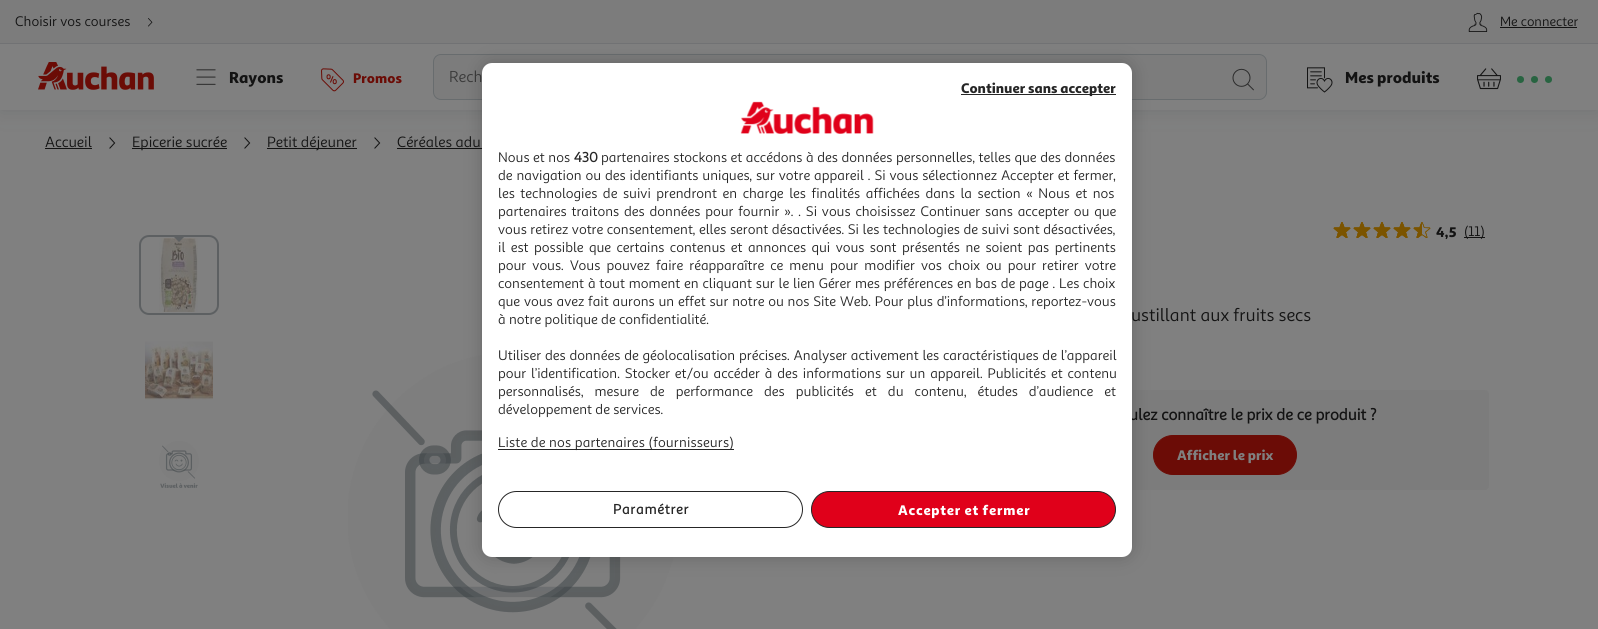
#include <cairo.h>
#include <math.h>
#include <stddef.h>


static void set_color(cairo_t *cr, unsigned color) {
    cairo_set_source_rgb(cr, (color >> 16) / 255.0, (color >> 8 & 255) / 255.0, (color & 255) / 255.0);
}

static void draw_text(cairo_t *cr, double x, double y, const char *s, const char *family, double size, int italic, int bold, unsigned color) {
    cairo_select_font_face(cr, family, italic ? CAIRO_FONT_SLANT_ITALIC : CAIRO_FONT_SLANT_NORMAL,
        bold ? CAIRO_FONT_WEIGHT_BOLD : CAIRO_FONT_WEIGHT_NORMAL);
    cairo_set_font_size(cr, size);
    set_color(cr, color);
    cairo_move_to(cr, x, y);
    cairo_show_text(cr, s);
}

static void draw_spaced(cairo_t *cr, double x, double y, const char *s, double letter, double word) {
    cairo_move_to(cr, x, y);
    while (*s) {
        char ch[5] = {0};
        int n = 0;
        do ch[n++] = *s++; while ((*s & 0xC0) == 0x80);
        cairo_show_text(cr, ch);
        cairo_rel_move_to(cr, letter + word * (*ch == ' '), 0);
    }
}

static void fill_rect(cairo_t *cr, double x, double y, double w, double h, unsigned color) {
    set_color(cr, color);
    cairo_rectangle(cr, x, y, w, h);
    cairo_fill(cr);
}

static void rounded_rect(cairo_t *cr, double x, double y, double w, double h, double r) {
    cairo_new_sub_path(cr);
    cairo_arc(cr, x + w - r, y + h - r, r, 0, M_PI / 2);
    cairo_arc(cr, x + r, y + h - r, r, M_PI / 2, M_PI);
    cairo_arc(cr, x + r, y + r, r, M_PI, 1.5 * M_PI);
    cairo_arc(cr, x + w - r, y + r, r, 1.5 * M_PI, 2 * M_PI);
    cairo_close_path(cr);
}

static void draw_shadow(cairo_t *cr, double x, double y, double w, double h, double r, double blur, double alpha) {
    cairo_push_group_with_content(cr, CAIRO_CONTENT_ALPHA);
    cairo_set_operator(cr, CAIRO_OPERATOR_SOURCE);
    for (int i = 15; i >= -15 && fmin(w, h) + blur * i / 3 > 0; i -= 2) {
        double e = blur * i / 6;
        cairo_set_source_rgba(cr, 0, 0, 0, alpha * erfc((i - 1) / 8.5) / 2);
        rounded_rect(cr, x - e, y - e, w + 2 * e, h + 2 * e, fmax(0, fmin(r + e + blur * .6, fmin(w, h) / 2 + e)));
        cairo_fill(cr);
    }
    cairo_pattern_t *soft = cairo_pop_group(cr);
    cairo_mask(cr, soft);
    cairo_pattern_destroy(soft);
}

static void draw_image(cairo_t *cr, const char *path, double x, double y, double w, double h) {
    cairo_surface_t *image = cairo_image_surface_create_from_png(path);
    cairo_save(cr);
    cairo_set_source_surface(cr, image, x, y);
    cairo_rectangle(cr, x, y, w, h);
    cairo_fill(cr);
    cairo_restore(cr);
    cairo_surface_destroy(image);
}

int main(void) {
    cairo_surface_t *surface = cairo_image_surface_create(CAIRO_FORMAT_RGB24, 1598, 629);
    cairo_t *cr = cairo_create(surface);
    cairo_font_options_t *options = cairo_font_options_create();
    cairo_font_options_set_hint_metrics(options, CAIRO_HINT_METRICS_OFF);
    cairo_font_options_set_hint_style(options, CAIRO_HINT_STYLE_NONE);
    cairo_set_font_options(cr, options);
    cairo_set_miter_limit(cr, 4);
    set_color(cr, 0x808080);
    cairo_paint(cr);
    draw_image(cr, "assets/img9.png", 109, 137, 7, 12);
    draw_image(cr, "assets/img9.png", 244, 137, 7, 12);
    draw_image(cr, "assets/img9.png", 374, 137, 7, 12);
    set_color(cr, 0x3A4144);
    draw_shadow(cr, 0, 0, 1598, 110, 0, 10, 0.2);
    fill_rect(cr, 0, 0, 1598, 43, 0x7C7C7C);
    fill_rect(cr, 0, 43, 1598, 1, 0x717274);
    draw_text(cr, 15, 26, "Choisir vos courses", "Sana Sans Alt", 14, 0, 0, 0x131313);
    draw_image(cr, "assets/img1.png", 148, 18, 5, 9);
    draw_image(cr, "assets/img2.png", 1468, 12, 20, 20);
    draw_text(cr, 1500, 26, "Me connecter", "Sana Sans Alt", 13.5, 0, 0, 0x131313);
    fill_rect(cr, 1500, 27, 77, 1, 0x131313);
    fill_rect(cr, 0, 44, 1598, 66, 0x808080);
    draw_image(cr, "assets/img3.png", 38, 62, 116, 28);
    draw_image(cr, "assets/img4.png", 196, 69, 20, 16);
    draw_text(cr, 229, 83, "Rayons", "Sana Sans Alt Black", 16, 0, 0, 0x131313);
    draw_image(cr, "assets/img5.png", 321, 68, 23, 24);
    draw_text(cr, 353, 83, "Promos", "Sana Sans Alt Black", 14, 0, 0, 0x6B0C06);
    set_color(cr, 0x7C7C7C);
    rounded_rect(cr, 433.5, 54.5, 833, 45, 7.5);
    cairo_fill_preserve(cr);
    set_color(cr, 0x686C6E);
    cairo_set_line_width(cr, 1);
    cairo_stroke(cr);
    draw_text(cr, 449, 82, "Rech", "Sana Sans Alt", 16, 0, 0, 0x3B3B3B);
    draw_image(cr, "assets/img6.png", 1232, 68, 22, 23);
    draw_image(cr, "assets/img7.png", 1307, 67, 26, 26);
    draw_text(cr, 1345, 83, "Mes produits", "Sana Sans Alt Black", 16, 0, 0, 0x131313);
    draw_image(cr, "assets/img8.png", 1477, 68, 24, 22);
    set_color(cr, 0x286441);
    cairo_arc(cr, 1520.5, 79.5, 3.5, 0, 2 * M_PI);
    cairo_fill(cr);
    cairo_arc(cr, 1534.5, 79.5, 3.5, 0, 2 * M_PI);
    cairo_fill(cr);
    cairo_arc(cr, 1548.5, 79.5, 3.5, 0, 2 * M_PI);
    cairo_fill(cr);
    draw_text(cr, 45, 147, "Accueil", "Sana Sans Alt", 15, 0, 0, 0x131313);
    fill_rect(cr, 45, 148, 47, 1, 0x131313);
    fill_rect(cr, 132, 148, 95, 1, 0x131313);
    draw_text(cr, 132, 147, "Epicerie sucrée", "Sana Sans Alt", 15, 0, 0, 0x131313);
    fill_rect(cr, 267, 148, 90, 1, 0x131313);
    draw_text(cr, 267, 147, "Petit déjeuner", "Sana Sans Alt", 15, 0, 0, 0x131313);
    draw_text(cr, 397, 147, "Céréales adu", "Sana Sans Alt", 15, 0, 0, 0x131313);
    fill_rect(cr, 397, 148, 85, 1, 0x131313);
    rounded_rect(cr, 140, 236, 78, 78, 9);
    set_color(cr, 0x5D6062);
    cairo_set_line_width(cr, 2);
    cairo_stroke(cr);
    draw_image(cr, "assets/img10.png", 159, 238, 39, 74);
    cairo_new_path(cr);
    cairo_move_to(cr, 174, 237);
    cairo_line_to(cr, 184, 237);
    cairo_line_to(cr, 179, 242);
    cairo_close_path(cr);
    cairo_fill(cr);
    draw_image(cr, "assets/img11.png", 145, 341, 68, 59);
    draw_image(cr, "assets/img12.png", 159, 441, 40, 47);
    draw_image(cr, "assets/img13.png", 348, 355, 326, 274);
    draw_image(cr, "assets/img14.png", 1333, 222, 98, 16);
    draw_text(cr, 1436, 237, "4,5", "Sana Sans Alt Black", 14, 0, 0, 0x131313);
    fill_rect(cr, 1464, 237, 21, 1, 0x131313);
    draw_text(cr, 1464, 236, "(11)", "Sana Sans Alt", 14, 0, 0, 0x131313);
    draw_text(cr, 1131, 321, "ustillant aux fruits secs", "Sana Sans Alt", 18, 0, 0, 0x131313);
    set_color(cr, 0x7C7C7C);
    rounded_rect(cr, 961, 390, 528, 100, 4);
    cairo_fill(cr);
    draw_text(cr, 1129, 420, "ulez connaître le prix de ce produit ?", "Sana Sans Alt", 16, 0, 1, 0x131313);
    set_color(cr, 0x6B0C06);
    rounded_rect(cr, 1153.5, 435.5, 143, 39, 19.5);
    cairo_fill_preserve(cr);
    cairo_set_line_width(cr, 1);
    cairo_stroke(cr);
    draw_text(cr, 1177, 460, "Afficher le prix", "Sana Sans Alt Black", 14, 0, 0, 0x808080);
    set_color(cr, 0x000000);
    draw_shadow(cr, 482, 63, 650, 494, 10, 9, 0.2);
    set_color(cr, 0xFFFFFF);
    rounded_rect(cr, 482, 63, 650, 494, 10);
    cairo_fill(cr);
    rounded_rect(cr, 498.5, 491.5, 304, 36, 18);
    set_color(cr, 0x262626);
    cairo_stroke(cr);
    cairo_select_font_face(cr, "Sana Sans Alt", CAIRO_FONT_SLANT_NORMAL, CAIRO_FONT_WEIGHT_BOLD);
    draw_spaced(cr, 613, 514, "Paramétrer", 0.75, 0);
    fill_rect(cr, 961, 94, 155, 1, 0x262626);
    draw_text(cr, 961, 93, "Continuer sans accepter", "Sana Sans Alt Black", 14, 0, 0, 0x262626);
    set_color(cr, 0xE0001A);
    rounded_rect(cr, 811.5, 491.5, 304, 36, 18);
    cairo_fill_preserve(cr);
    set_color(cr, 0x262626);
    cairo_stroke(cr);
    set_color(cr, 0xFFFFFF);
    draw_spaced(cr, 898, 515, "Accepter et fermer", 0.75, 0);
    draw_image(cr, "assets/img15.png", 740, 101, 134, 33);
    cairo_select_font_face(cr, "Sana Sans Alt", CAIRO_FONT_SLANT_NORMAL, CAIRO_FONT_WEIGHT_NORMAL);
    set_color(cr, 0x262626);
    draw_spaced(cr, 498, 162, "Nous et nos", 0, 0.25);
    draw_text(cr, 574, 162, "430", "Sana Sans Alt", 14, 0, 1, 0x262626);
    cairo_select_font_face(cr, "Sana Sans Alt", CAIRO_FONT_SLANT_NORMAL, CAIRO_FONT_WEIGHT_NORMAL);
    draw_spaced(cr, 601, 162, "partenaires stockons et accédons à des données personnelles, telles que des données", 0, 0.25);
    draw_spaced(cr, 498, 180, "de navigation ou des identifiants uniques, sur votre appareil . Si vous sélectionnez Accepter et fermer,", 0, 0.6);
    draw_spaced(cr, 498, 198, "les technologies de suivi prendront en charge les finalités affichées dans la section « Nous et nos", 0, 2.25);
    draw_spaced(cr, 498, 216, "partenaires traitons des données pour fournir ». . Si vous choisissez Continuer sans accepter ou que", 0, 1.5);
    draw_spaced(cr, 498, 234, "vous retirez votre consentement, elles seront désactivées. Si les technologies de suivi sont désactivées,", 0, 0.25);
    draw_spaced(cr, 498, 252, "il est possible que certains contenus et annonces qui vous sont présentés ne soient pas pertinents", 0, 2.1);
    draw_spaced(cr, 498, 270, "pour vous. Vous pouvez faire réapparaître ce menu pour modifier vos choix ou pour retirer votre", 0, 2.75);
    draw_spaced(cr, 498, 288, "consentement à tout moment en cliquant sur le lien Gérer mes préférences en bas de page . Les choix", 0, 0.5);
    draw_spaced(cr, 498, 306, "que vous avez fait aurons un effet sur notre ou nos Site Web. Pour plus d’informations, reportez-vous", 0, 0.5);
    draw_text(cr, 498, 324, "à notre politique de confidentialité.", "Sana Sans Alt", 14, 0, 0, 0x262626);
    draw_spaced(cr, 498, 360, "Utiliser des données de géolocalisation précises. Analyser activement les caractéristiques de l’appareil", 0, 0.5);
    draw_spaced(cr, 498, 378, "pour l’identification. Stocker et/ou accéder à des informations sur un appareil. Publicités et contenu", 0, 1.5);
    draw_spaced(cr, 498, 396, "personnalisés, mesure de performance des publicités et du contenu, études d’audience et", 0, 7.75);
    draw_text(cr, 498, 414, "développement de services.", "Sana Sans Alt", 14, 0, 0, 0x262626);
    fill_rect(cr, 498, 449, 236, 1, 0x262626);
    draw_spaced(cr, 498, 447, "Liste de nos partenaires (fournisseurs)", 0.15, 0);
    cairo_surface_write_to_png(surface, "output.png");
    cairo_font_options_destroy(options);
    cairo_destroy(cr);
    cairo_surface_destroy(surface);
    return 0;
}
